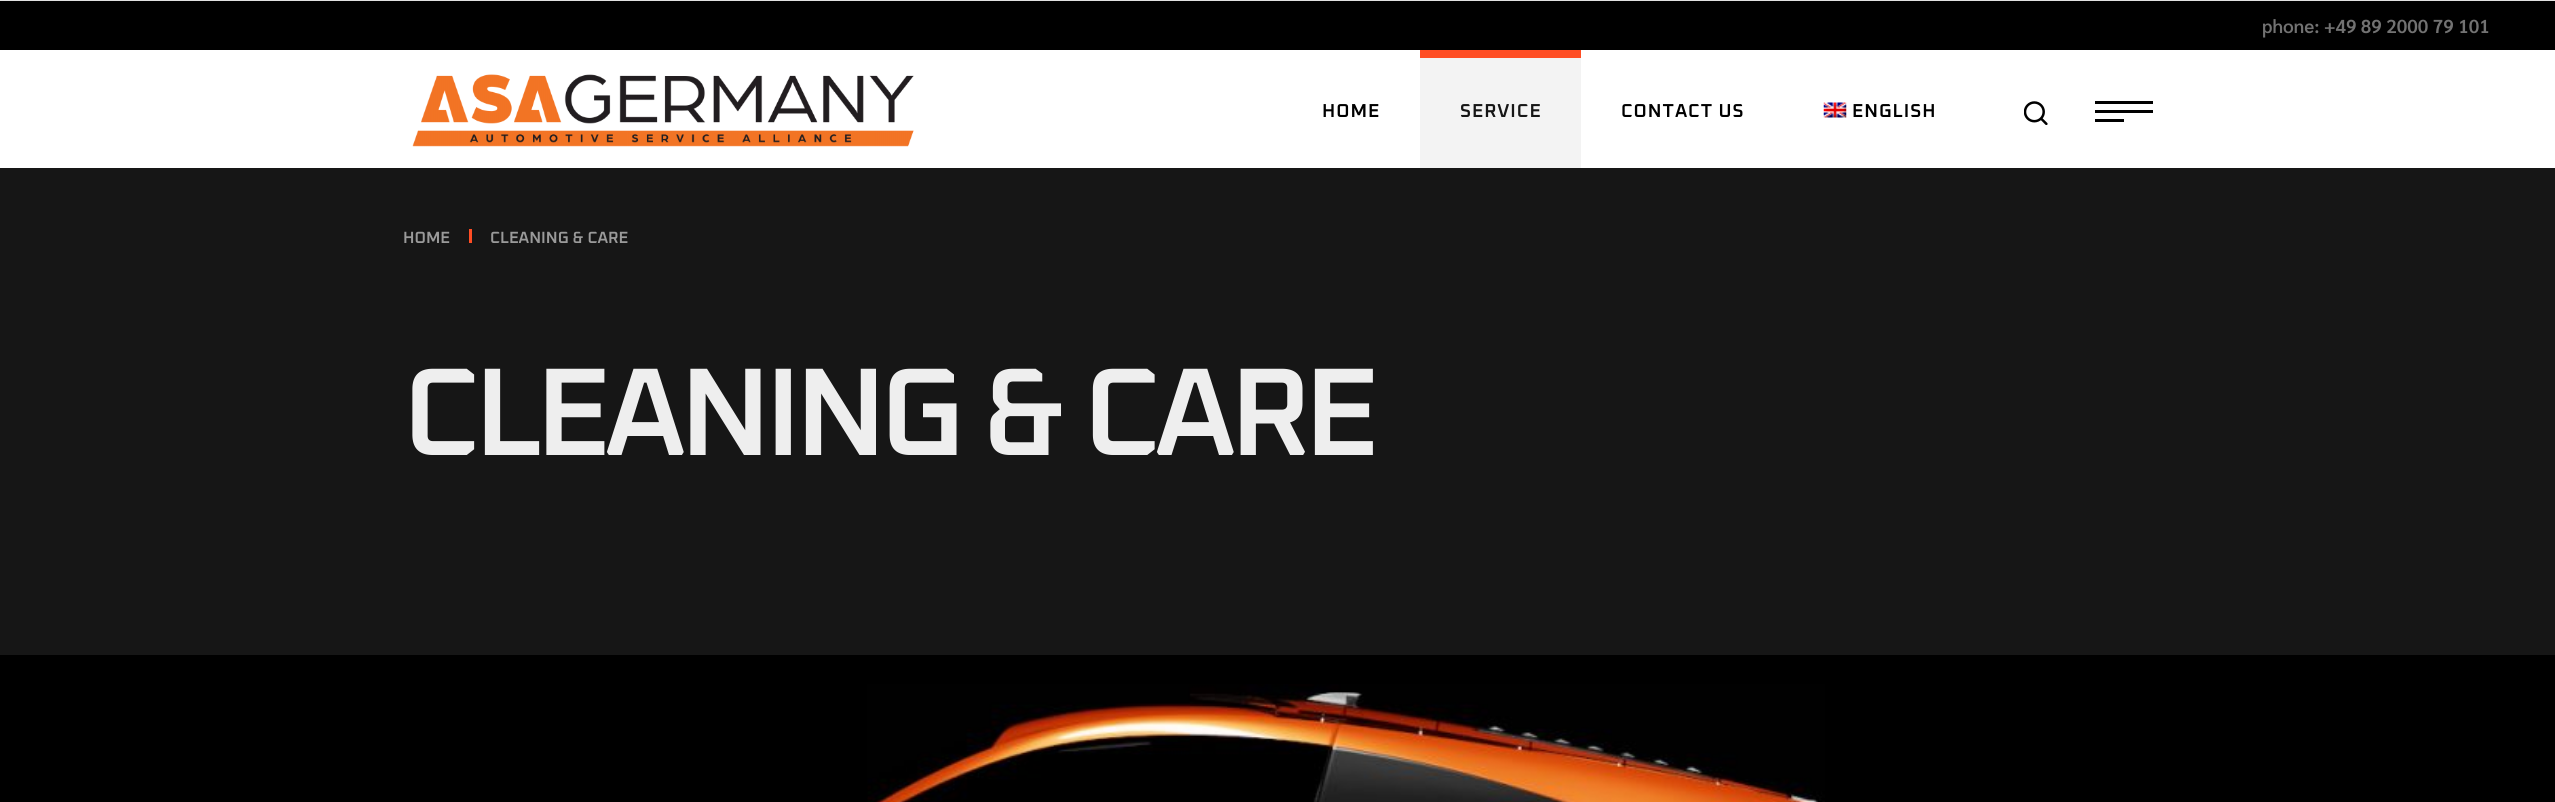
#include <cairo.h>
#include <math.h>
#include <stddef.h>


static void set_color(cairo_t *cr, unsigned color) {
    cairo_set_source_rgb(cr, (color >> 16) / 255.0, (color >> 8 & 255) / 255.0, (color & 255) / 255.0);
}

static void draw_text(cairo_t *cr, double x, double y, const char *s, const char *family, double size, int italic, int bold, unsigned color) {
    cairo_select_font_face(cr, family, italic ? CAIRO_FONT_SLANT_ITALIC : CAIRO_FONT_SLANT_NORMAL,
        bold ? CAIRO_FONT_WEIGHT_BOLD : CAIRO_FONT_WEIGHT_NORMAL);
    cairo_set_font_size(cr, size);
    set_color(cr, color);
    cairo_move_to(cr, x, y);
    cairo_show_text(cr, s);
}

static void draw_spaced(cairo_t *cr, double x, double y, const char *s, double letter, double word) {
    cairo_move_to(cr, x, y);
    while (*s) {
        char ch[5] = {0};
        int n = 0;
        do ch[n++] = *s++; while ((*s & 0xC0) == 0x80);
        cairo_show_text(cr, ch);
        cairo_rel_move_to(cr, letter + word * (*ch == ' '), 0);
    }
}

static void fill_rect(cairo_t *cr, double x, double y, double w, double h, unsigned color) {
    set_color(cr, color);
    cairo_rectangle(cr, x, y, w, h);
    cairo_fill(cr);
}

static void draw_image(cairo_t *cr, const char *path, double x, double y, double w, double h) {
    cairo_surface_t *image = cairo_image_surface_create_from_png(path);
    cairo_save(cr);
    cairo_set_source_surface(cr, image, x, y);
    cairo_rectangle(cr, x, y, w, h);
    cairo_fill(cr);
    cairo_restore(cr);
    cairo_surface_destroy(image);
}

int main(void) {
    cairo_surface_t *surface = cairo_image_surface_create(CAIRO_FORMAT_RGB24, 2555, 802);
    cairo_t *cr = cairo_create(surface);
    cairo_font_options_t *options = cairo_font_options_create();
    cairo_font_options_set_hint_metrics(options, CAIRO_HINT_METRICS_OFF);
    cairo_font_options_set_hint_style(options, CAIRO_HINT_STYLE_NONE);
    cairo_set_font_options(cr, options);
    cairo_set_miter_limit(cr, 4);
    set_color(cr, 0x000000);
    cairo_paint(cr);
    draw_text(cr, 2262, 33, "phone: +49 89 2000 79 101", "Sarabun SemiBold", 18.75, 0, 0, 0x727272);
    fill_rect(cr, 0, 50, 2555, 118, 0xFFFFFF);
    fill_rect(cr, 0, 0, 2555, 1, 0xE1E1E1);
    draw_image(cr, "assets/img1.png", 412, 74, 502, 73);
    cairo_select_font_face(cr, "Oxanium SemiBold", CAIRO_FONT_SLANT_NORMAL, CAIRO_FONT_WEIGHT_NORMAL);
    set_color(cr, 0x000000);
    draw_spaced(cr, 1322, 117, "HOME", 1, 0);
    fill_rect(cr, 1420, 58, 161, 110, 0xF3F3F3);
    fill_rect(cr, 1420, 50, 161, 8, 0xFF4D24);
    set_color(cr, 0x161616);
    draw_spaced(cr, 1460, 117, "SERVICE", 1, 0);
    set_color(cr, 0x000000);
    draw_spaced(cr, 1621, 117, "CONTACT US", 1, 0);
    draw_image(cr, "assets/img2.png", 1823, 102, 24, 16);
    draw_spaced(cr, 1852, 117, "ENGLISH", 1, 0);
    draw_image(cr, "assets/img3.png", 2024, 101, 24, 24);
    fill_rect(cr, 2095, 101, 58, 3, 0x000000);
    fill_rect(cr, 2095, 110, 58, 3, 0x000000);
    fill_rect(cr, 2095, 119, 29, 3, 0x000000);
    fill_rect(cr, 0, 168, 2555, 487, 0x161616);
    draw_text(cr, 403, 243, "HOME", "Oxanium SemiBold", 16.25, 0, 0, 0x9A9A9A);
    fill_rect(cr, 469, 229, 3, 14, 0xFF4D24);
    draw_text(cr, 490, 243, "CLEANING & CARE", "Oxanium SemiBold", 16.25, 0, 0, 0x9A9A9A);
    cairo_set_font_size(cr, 125);
    set_color(cr, 0xEEEEEE);
    draw_spaced(cr, 403, 455, "CLEANING & CARE", -6.25, 0);
    draw_image(cr, "assets/img4.png", 867, 684, 958, 118);
    cairo_surface_write_to_png(surface, "output.png");
    cairo_font_options_destroy(options);
    cairo_destroy(cr);
    cairo_surface_destroy(surface);
    return 0;
}
